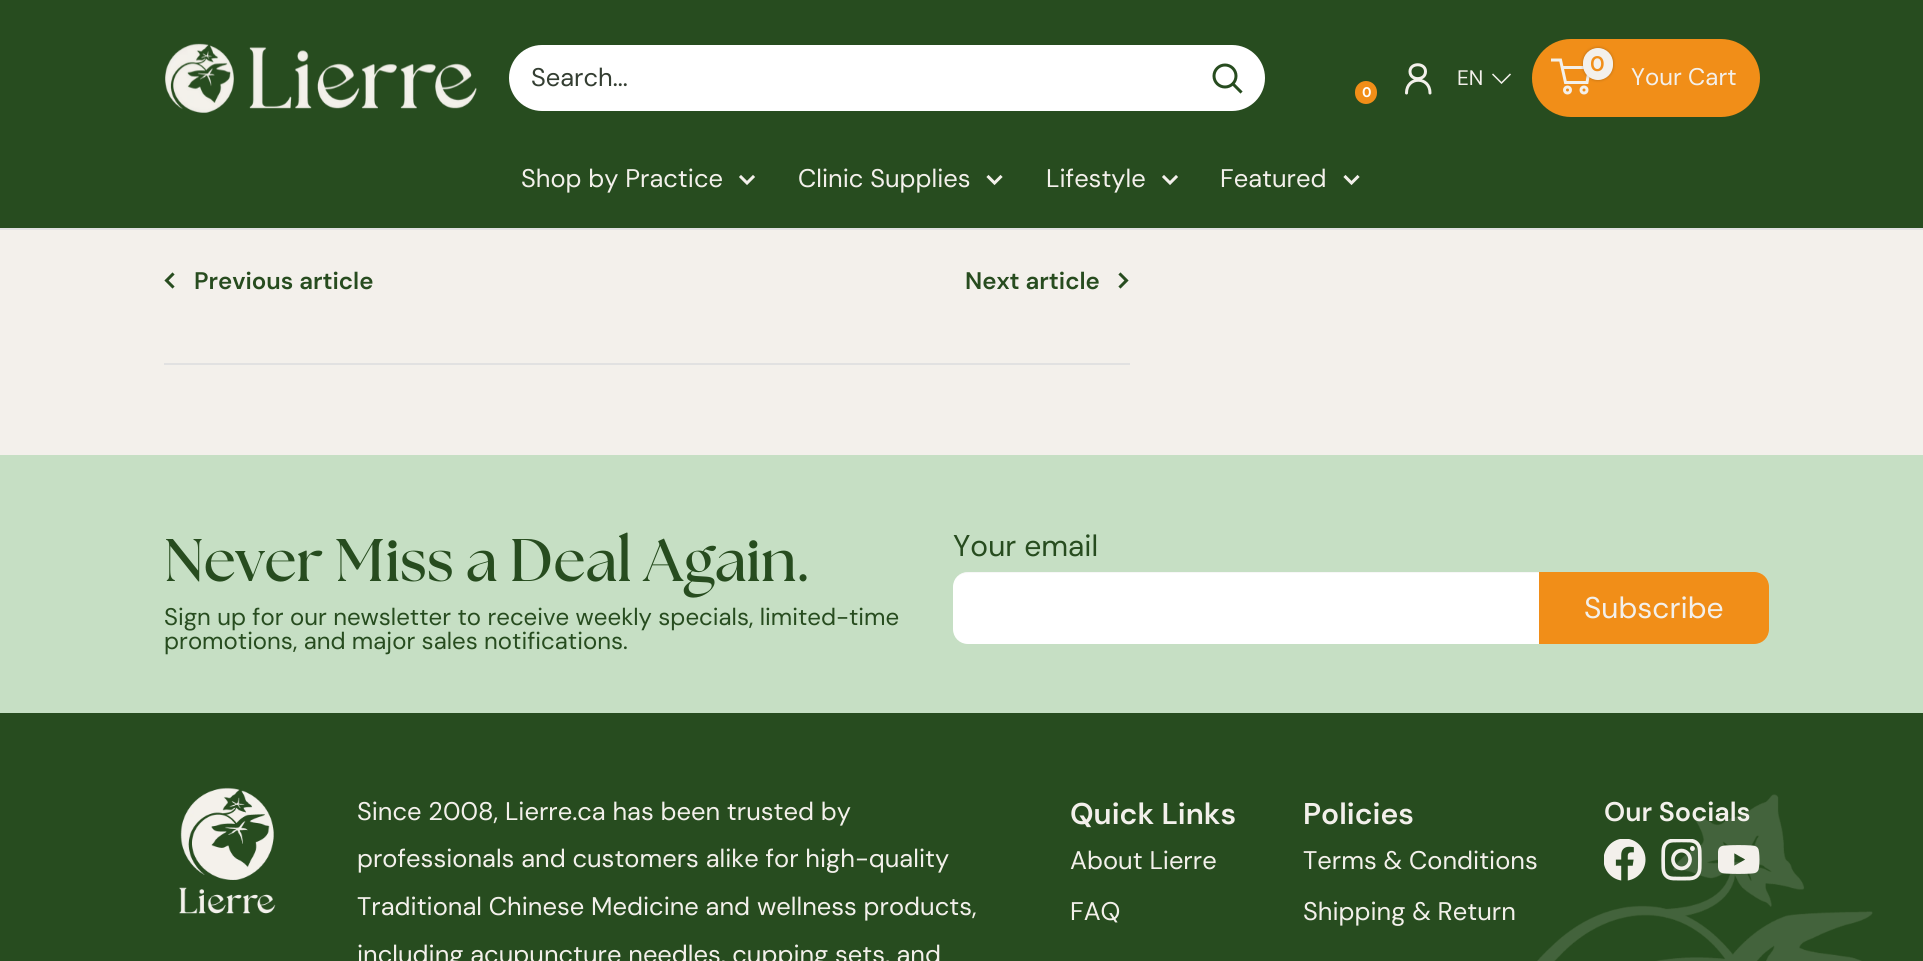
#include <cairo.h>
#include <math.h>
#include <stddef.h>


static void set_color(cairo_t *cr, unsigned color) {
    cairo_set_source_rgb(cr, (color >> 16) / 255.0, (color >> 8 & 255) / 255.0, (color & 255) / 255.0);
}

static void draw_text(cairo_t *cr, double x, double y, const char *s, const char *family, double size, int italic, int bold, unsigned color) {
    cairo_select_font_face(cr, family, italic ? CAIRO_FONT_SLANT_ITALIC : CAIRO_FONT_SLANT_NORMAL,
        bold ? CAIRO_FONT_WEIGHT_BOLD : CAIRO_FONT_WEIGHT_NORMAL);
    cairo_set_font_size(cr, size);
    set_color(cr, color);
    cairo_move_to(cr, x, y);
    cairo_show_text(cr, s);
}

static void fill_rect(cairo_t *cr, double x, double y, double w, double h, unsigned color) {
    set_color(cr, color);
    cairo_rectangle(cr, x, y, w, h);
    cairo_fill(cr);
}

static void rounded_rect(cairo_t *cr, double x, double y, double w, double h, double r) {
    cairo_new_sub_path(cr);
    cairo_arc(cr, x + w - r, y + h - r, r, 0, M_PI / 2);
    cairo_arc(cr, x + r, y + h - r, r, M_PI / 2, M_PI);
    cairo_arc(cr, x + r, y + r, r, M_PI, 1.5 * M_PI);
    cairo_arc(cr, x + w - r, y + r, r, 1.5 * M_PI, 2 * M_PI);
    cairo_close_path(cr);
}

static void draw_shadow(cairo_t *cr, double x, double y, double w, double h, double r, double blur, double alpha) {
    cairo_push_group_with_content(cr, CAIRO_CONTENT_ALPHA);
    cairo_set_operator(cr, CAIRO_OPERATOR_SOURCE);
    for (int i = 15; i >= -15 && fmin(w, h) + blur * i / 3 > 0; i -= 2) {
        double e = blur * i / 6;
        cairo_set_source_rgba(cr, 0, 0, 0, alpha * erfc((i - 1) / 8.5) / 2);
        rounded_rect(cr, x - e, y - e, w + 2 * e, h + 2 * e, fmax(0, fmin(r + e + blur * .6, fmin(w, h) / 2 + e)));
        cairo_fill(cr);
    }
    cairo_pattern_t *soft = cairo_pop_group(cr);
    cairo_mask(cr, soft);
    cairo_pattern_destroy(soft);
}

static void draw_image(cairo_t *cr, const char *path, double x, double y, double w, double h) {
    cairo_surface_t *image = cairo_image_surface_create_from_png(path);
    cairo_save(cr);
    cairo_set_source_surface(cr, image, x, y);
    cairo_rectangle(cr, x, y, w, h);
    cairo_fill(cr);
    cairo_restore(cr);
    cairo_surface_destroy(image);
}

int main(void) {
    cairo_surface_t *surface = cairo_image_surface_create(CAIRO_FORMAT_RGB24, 1923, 961);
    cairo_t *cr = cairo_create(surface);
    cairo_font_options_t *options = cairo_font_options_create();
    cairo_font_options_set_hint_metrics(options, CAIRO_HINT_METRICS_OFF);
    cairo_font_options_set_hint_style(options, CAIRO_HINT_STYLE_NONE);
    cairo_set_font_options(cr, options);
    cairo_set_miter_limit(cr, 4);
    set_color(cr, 0xF3F0EB);
    cairo_paint(cr);
    fill_rect(cr, 0, 0, 1923, 228, 0x274C1F);
    draw_image(cr, "assets/img1.png", 165, 43, 312, 70);
    set_color(cr, 0xFFFFFF);
    rounded_rect(cr, 509, 45, 756, 66, 33);
    cairo_fill(cr);
    draw_text(cr, 531, 86, "Search...", "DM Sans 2", 25.5, 0, 0, 0x343E32);
    cairo_new_path(cr);
    cairo_move_to(cr, 1240.5, 91.5);
    cairo_line_to(cr, 1233, 84);
    set_color(cr, 0x274C1F);
    cairo_set_line_width(cr, 3);
    cairo_set_line_cap(cr, CAIRO_LINE_CAP_SQUARE);
    cairo_stroke(cr);
    cairo_arc(cr, 1225, 76, 11, 0, 2 * M_PI);
    cairo_set_line_cap(cr, CAIRO_LINE_CAP_BUTT);
    cairo_stroke(cr);
    cairo_new_path(cr);
    cairo_move_to(cr, 1425.5, 71.5);
    cairo_curve_to(cr, 1425.5, 81, 1410, 81, 1410, 71.5);
    cairo_curve_to(cr, 1410, 62.5, 1425.5, 62.5, 1425.5, 71.5);
    cairo_close_path(cr);
    cairo_move_to(cr, 1430, 93);
    cairo_curve_to(cr, 1430, 76, 1406.5, 76, 1406.5, 93);
    set_color(cr, 0xF3F0EB);
    cairo_set_line_cap(cr, CAIRO_LINE_CAP_ROUND);
    cairo_set_line_join(cr, CAIRO_LINE_JOIN_BEVEL);
    cairo_stroke(cr);
    draw_text(cr, 1457, 85, "EN", "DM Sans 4", 21, 0, 0, 0xF3F0EB);
    cairo_new_path(cr);
    cairo_move_to(cr, 1492.5, 74);
    cairo_line_to(cr, 1501.5, 83);
    cairo_line_to(cr, 1510.5, 74);
    cairo_set_line_width(cr, 1.5);
    cairo_set_line_cap(cr, CAIRO_LINE_CAP_BUTT);
    cairo_set_line_join(cr, CAIRO_LINE_JOIN_MITER);
    cairo_stroke(cr);
    set_color(cr, 0xF18E18);
    rounded_rect(cr, 1532, 39, 228, 78, 39);
    cairo_fill(cr);
    cairo_arc(cr, 1567.5, 90, 3, 0, 2 * M_PI);
    set_color(cr, 0xF3F0EB);
    cairo_set_line_width(cr, 3);
    cairo_stroke(cr);
    cairo_arc(cr, 1584, 90, 3, 0, 2 * M_PI);
    cairo_stroke(cr);
    cairo_new_path(cr);
    cairo_move_to(cr, 1562, 67.5);
    cairo_line_to(cr, 1589.5, 67.5);
    cairo_line_to(cr, 1587, 82.5);
    cairo_line_to(cr, 1565.5, 82.5);
    cairo_line_to(cr, 1560.5, 60);
    cairo_line_to(cr, 1551, 60);
    cairo_stroke(cr);
    set_color(cr, 0x000000);
    draw_shadow(cr, 1583, 48, 30, 32, 15, 1.5, 0.25);
    set_color(cr, 0xF3F0EB);
    rounded_rect(cr, 1583, 48, 30, 32, 15);
    cairo_fill(cr);
    draw_text(cr, 1590, 71, "0", "DM Sans 4 SemiBold", 21, 0, 0, 0xF18E18);
    draw_text(cr, 1631, 85, "Your Cart", "DM Sans", 24, 0, 0, 0xF3F0EB);
    set_color(cr, 0xF18E18);
    rounded_rect(cr, 1355, 81, 22, 23, 11);
    cairo_fill(cr);
    draw_text(cr, 1362, 97, "0", "DM Sans", 14, 0, 1, 0xFFFFFF);
    fill_rect(cr, 0, 228, 1923, 2, 0xE1E1E1);
    draw_text(cr, 521, 187, "Shop by Practice", "DM Sans 2", 25.5, 0, 0, 0xF3F0EB);
    cairo_new_path(cr);
    cairo_move_to(cr, 753, 177);
    cairo_line_to(cr, 747, 183);
    cairo_line_to(cr, 741, 177);
    cairo_set_line_cap(cr, CAIRO_LINE_CAP_SQUARE);
    cairo_stroke(cr);
    draw_text(cr, 798, 187, "Clinic Supplies", "DM Sans 2", 25.5, 0, 0, 0xF3F0EB);
    cairo_new_path(cr);
    cairo_move_to(cr, 1000.5, 177);
    cairo_line_to(cr, 994.5, 183);
    cairo_line_to(cr, 988.5, 177);
    cairo_stroke(cr);
    draw_text(cr, 1046, 187, "Lifestyle", "DM Sans 2", 25.5, 0, 0, 0xF3F0EB);
    cairo_new_path(cr);
    cairo_move_to(cr, 1176, 177);
    cairo_line_to(cr, 1170, 183);
    cairo_line_to(cr, 1164, 177);
    cairo_stroke(cr);
    draw_text(cr, 1220, 187, "Featured", "DM Sans 2", 25.5, 0, 0, 0xF3F0EB);
    cairo_new_path(cr);
    cairo_move_to(cr, 1357.5, 177);
    cairo_line_to(cr, 1351.5, 183);
    cairo_line_to(cr, 1345.5, 177);
    cairo_stroke(cr);
    fill_rect(cr, 164, 363, 966, 2, 0xE1E1E1);
    cairo_new_path(cr);
    cairo_move_to(cr, 172.5, 286.5);
    cairo_line_to(cr, 166.5, 280.5);
    cairo_line_to(cr, 172.5, 274.5);
    set_color(cr, 0x274C1F);
    cairo_stroke(cr);
    draw_text(cr, 194, 289, "Previous article", "DM Sans SemiBold", 24, 0, 0, 0x274C1F);
    draw_text(cr, 965, 289, "Next article", "DM Sans SemiBold", 24, 0, 0, 0x274C1F);
    cairo_new_path(cr);
    cairo_move_to(cr, 1120.5, 274.5);
    cairo_line_to(cr, 1126.5, 280.5);
    cairo_line_to(cr, 1120.5, 286.5);
    cairo_stroke(cr);
    fill_rect(cr, 0, 455, 1923, 258, 0xC6DFC4);
    draw_text(cr, 164, 581, "Never Miss a Deal Again.", "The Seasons", 60, 0, 1, 0x274C1F);
    draw_text(cr, 164, 625, "Sign up for our newsletter to receive weekly specials, limited-time", "DM Sans", 24, 0, 0, 0x274C1F);
    draw_text(cr, 164, 649, "promotions, and major sales notifications.", "DM Sans", 24, 0, 0, 0x274C1F);
    draw_text(cr, 953, 556, "Your email", "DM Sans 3", 30, 0, 0, 0x274C1F);
    set_color(cr, 0xFFFFFF);
    cairo_new_path(cr);
    cairo_move_to(cr, 968, 572);
    cairo_line_to(cr, 1539, 572);
    cairo_line_to(cr, 1539, 644);
    cairo_line_to(cr, 968, 644);
    cairo_curve_to(cr, 959.5, 644, 953, 637.5, 953, 629);
    cairo_line_to(cr, 953, 587);
    cairo_curve_to(cr, 953, 578.5, 959.5, 572, 968, 572);
    cairo_close_path(cr);
    cairo_fill(cr);
    cairo_set_source_rgba(cr, 0.882, 0.882, 0.882, 0.25);
    cairo_new_path(cr);
    cairo_move_to(cr, 968, 573);
    cairo_line_to(cr, 1539, 573);
    cairo_line_to(cr, 1539, 572);
    cairo_line_to(cr, 968, 572);
    cairo_curve_to(cr, 963, 572, 958, 575, 956, 579);
    cairo_curve_to(cr, 958, 575, 963, 573, 968, 573);
    cairo_close_path(cr);
    cairo_fill(cr);
    set_color(cr, 0xF18E18);
    cairo_new_path(cr);
    cairo_move_to(cr, 1539, 572);
    cairo_line_to(cr, 1754, 572);
    cairo_curve_to(cr, 1762.5, 572, 1769, 578.5, 1769, 587);
    cairo_line_to(cr, 1769, 629);
    cairo_curve_to(cr, 1769, 637.5, 1762.5, 644, 1754, 644);
    cairo_line_to(cr, 1539, 644);
    cairo_close_path(cr);
    cairo_fill(cr);
    draw_text(cr, 1584, 618, "Subscribe", "DM Sans 3", 30, 0, 0, 0xF3F0EB);
    fill_rect(cr, 0, 713, 1923, 248, 0x274C1F);
    draw_image(cr, "assets/img2.png", 1537, 794, 336, 167);
    draw_image(cr, "assets/img3.png", 179, 787, 97, 127);
    draw_text(cr, 357, 820, "Since 2008, Lierre.ca has been trusted by", "DM Sans 2", 25.5, 0, 0, 0xF3F0EB);
    draw_text(cr, 357, 867, "professionals and customers alike for high-quality", "DM Sans 2", 25.5, 0, 0, 0xF3F0EB);
    draw_text(cr, 357, 915, "Traditional Chinese Medicine and wellness products,", "DM Sans 2", 25.5, 0, 0, 0xF3F0EB);
    draw_text(cr, 357, 963, "including acupuncture needles, cupping sets, and", "DM Sans 2", 25.5, 0, 0, 0xF3F0EB);
    draw_text(cr, 1070, 824, "Quick Links", "DM Sans 3 SemiBold", 30, 0, 0, 0xF3F0EB);
    draw_text(cr, 1070, 869, "About Lierre", "DM Sans 2", 25.5, 0, 0, 0xF3F0EB);
    draw_text(cr, 1070, 920, "FAQ", "DM Sans 2", 25.5, 0, 0, 0xF3F0EB);
    draw_text(cr, 1303, 824, "Policies", "DM Sans 3 SemiBold", 30, 0, 0, 0xF3F0EB);
    draw_text(cr, 1303, 869, "Terms & Conditions", "DM Sans 2", 25.5, 0, 0, 0xF3F0EB);
    draw_text(cr, 1303, 920, "Shipping & Return", "DM Sans 2", 25.5, 0, 0, 0xF3F0EB);
    draw_text(cr, 1604, 821, "Our Socials", "DM Sans 2 SemiBold", 27, 0, 0, 0xF3F0EB);
    draw_image(cr, "assets/img4.png", 1604, 839, 42, 42);
    draw_image(cr, "assets/img5.png", 1661, 839, 41, 42);
    draw_image(cr, "assets/img6.png", 1718, 845, 42, 29);
    cairo_surface_write_to_png(surface, "output.png");
    cairo_font_options_destroy(options);
    cairo_destroy(cr);
    cairo_surface_destroy(surface);
    return 0;
}
